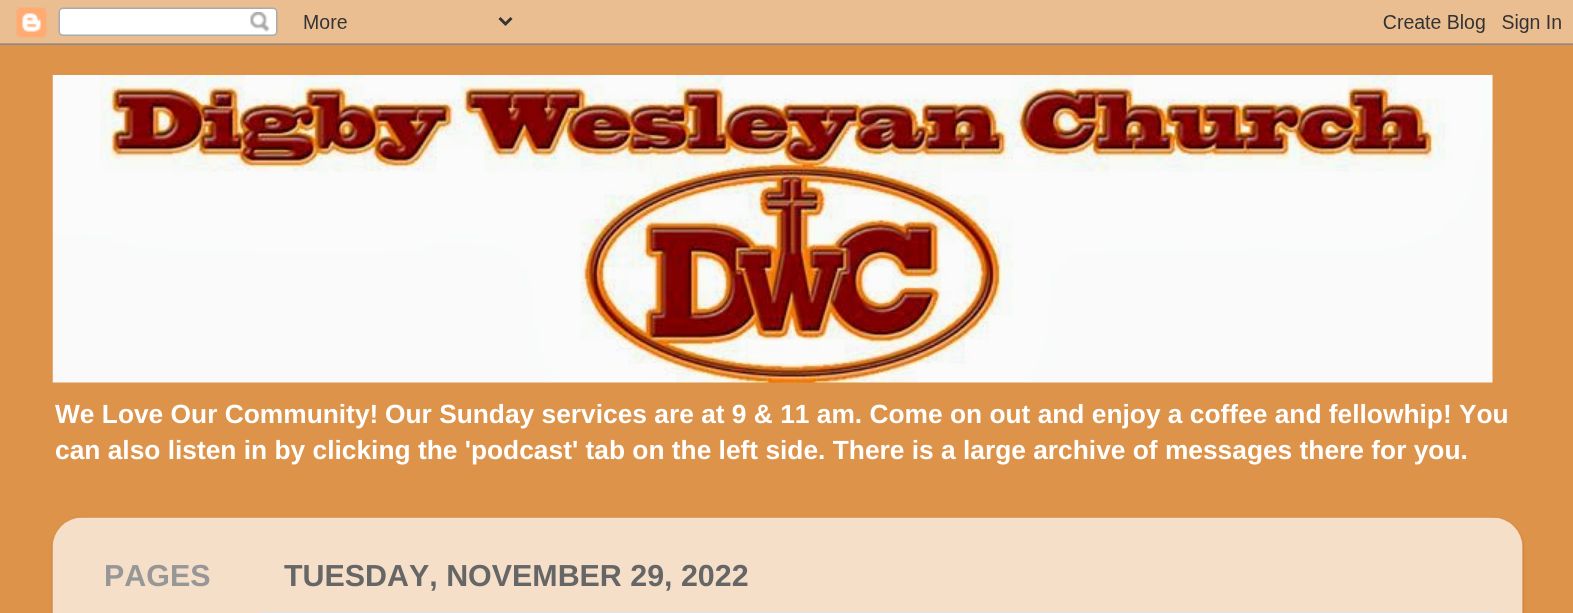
#include <cairo.h>
#include <math.h>
#include <stddef.h>


static void set_color(cairo_t *cr, unsigned color) {
    cairo_set_source_rgb(cr, (color >> 16) / 255.0, (color >> 8 & 255) / 255.0, (color & 255) / 255.0);
}

static void draw_text(cairo_t *cr, double x, double y, const char *s, const char *family, double size, int italic, int bold, unsigned color) {
    cairo_select_font_face(cr, family, italic ? CAIRO_FONT_SLANT_ITALIC : CAIRO_FONT_SLANT_NORMAL,
        bold ? CAIRO_FONT_WEIGHT_BOLD : CAIRO_FONT_WEIGHT_NORMAL);
    cairo_set_font_size(cr, size);
    set_color(cr, color);
    cairo_move_to(cr, x, y);
    cairo_show_text(cr, s);
}

static void rounded_rect(cairo_t *cr, double x, double y, double w, double h, double r) {
    cairo_new_sub_path(cr);
    cairo_arc(cr, x + w - r, y + h - r, r, 0, M_PI / 2);
    cairo_arc(cr, x + r, y + h - r, r, M_PI / 2, M_PI);
    cairo_arc(cr, x + r, y + r, r, M_PI, 1.5 * M_PI);
    cairo_arc(cr, x + w - r, y + r, r, 1.5 * M_PI, 2 * M_PI);
    cairo_close_path(cr);
}

static void draw_shadow(cairo_t *cr, double x, double y, double w, double h, double r, double blur, double alpha) {
    cairo_push_group_with_content(cr, CAIRO_CONTENT_ALPHA);
    cairo_set_operator(cr, CAIRO_OPERATOR_SOURCE);
    for (int i = 15; i >= -15 && fmin(w, h) + blur * i / 3 > 0; i -= 2) {
        double e = blur * i / 6;
        cairo_set_source_rgba(cr, 0, 0, 0, alpha * erfc((i - 1) / 8.5) / 2);
        rounded_rect(cr, x - e, y - e, w + 2 * e, h + 2 * e, fmax(0, fmin(r + e + blur * .6, fmin(w, h) / 2 + e)));
        cairo_fill(cr);
    }
    cairo_pattern_t *soft = cairo_pop_group(cr);
    cairo_mask(cr, soft);
    cairo_pattern_destroy(soft);
}

static void draw_image(cairo_t *cr, const char *path, double x, double y, double w, double h) {
    cairo_surface_t *image = cairo_image_surface_create_from_png(path);
    cairo_save(cr);
    cairo_set_source_surface(cr, image, x, y);
    cairo_rectangle(cr, x, y, w, h);
    cairo_fill(cr);
    cairo_restore(cr);
    cairo_surface_destroy(image);
}

int main(void) {
    cairo_surface_t *surface = cairo_image_surface_create(CAIRO_FORMAT_RGB24, 1573, 613);
    cairo_t *cr = cairo_create(surface);
    cairo_font_options_t *options = cairo_font_options_create();
    cairo_font_options_set_hint_metrics(options, CAIRO_HINT_METRICS_OFF);
    cairo_font_options_set_hint_style(options, CAIRO_HINT_STYLE_NONE);
    cairo_set_font_options(cr, options);
    cairo_set_miter_limit(cr, 4);
    set_color(cr, 0xDD934A);
    cairo_paint(cr);
    draw_image(cr, "assets/img1.png", 0, 0, 1573, 45);
    draw_image(cr, "assets/img2.png", 52, 75, 1441, 308);
    draw_text(cr, 55, 423, "We Love Our Community!", "Liberation Sans", 26.33, 0, 1, 0xFFFFFF);
    draw_text(cr, 385, 423, "Our Sunday services are at 9 & 11 am. Come on out and enjoy a coffee and fellowhip! You", "Liberation Sans", 26.33, 0, 1, 0xFFFFFF);
    draw_text(cr, 55, 459, "can also listen in by clicking the 'podcast' tab on the left side. There is a large archive of messages there for you.", "Liberation Sans", 26.33, 0, 1, 0xFFFFFF);
    cairo_save(cr);
    cairo_set_fill_rule(cr, CAIRO_FILL_RULE_EVEN_ODD);
    cairo_new_path(cr);
    cairo_move_to(cr, 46, 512);
    cairo_line_to(cr, 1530, 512);
    cairo_line_to(cr, 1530, 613);
    cairo_line_to(cr, 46, 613);
    cairo_close_path(cr);
    cairo_move_to(cr, 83, 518);
    cairo_line_to(cr, 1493, 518);
    cairo_curve_to(cr, 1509.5, 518, 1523, 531.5, 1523, 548);
    cairo_line_to(cr, 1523, 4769);
    cairo_line_to(cr, 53, 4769);
    cairo_line_to(cr, 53, 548);
    cairo_curve_to(cr, 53, 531.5, 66.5, 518, 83, 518);
    cairo_close_path(cr);
    cairo_clip(cr);
    set_color(cr, 0x000000);
    draw_shadow(cr, 53, 519, 1470, 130, 30, 2, 0.15);
    cairo_restore(cr);
    draw_image(cr, "assets/img3.png", 52, 517, 1471, 96);
    draw_text(cr, 104, 586, "PAGES", "Liberation Sans", 30.4, 0, 1, 0x979797);
    draw_text(cr, 284, 586, "TUESDAY, NOVEMBER 29, 2022", "Liberation Sans", 30.4, 0, 1, 0x666666);
    rounded_rect(cr, 256, 613, 1243, 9, 7);
    set_color(cr, 0xE3E3E3);
    cairo_stroke(cr);
    cairo_surface_write_to_png(surface, "output.png");
    cairo_font_options_destroy(options);
    cairo_destroy(cr);
    cairo_surface_destroy(surface);
    return 0;
}
